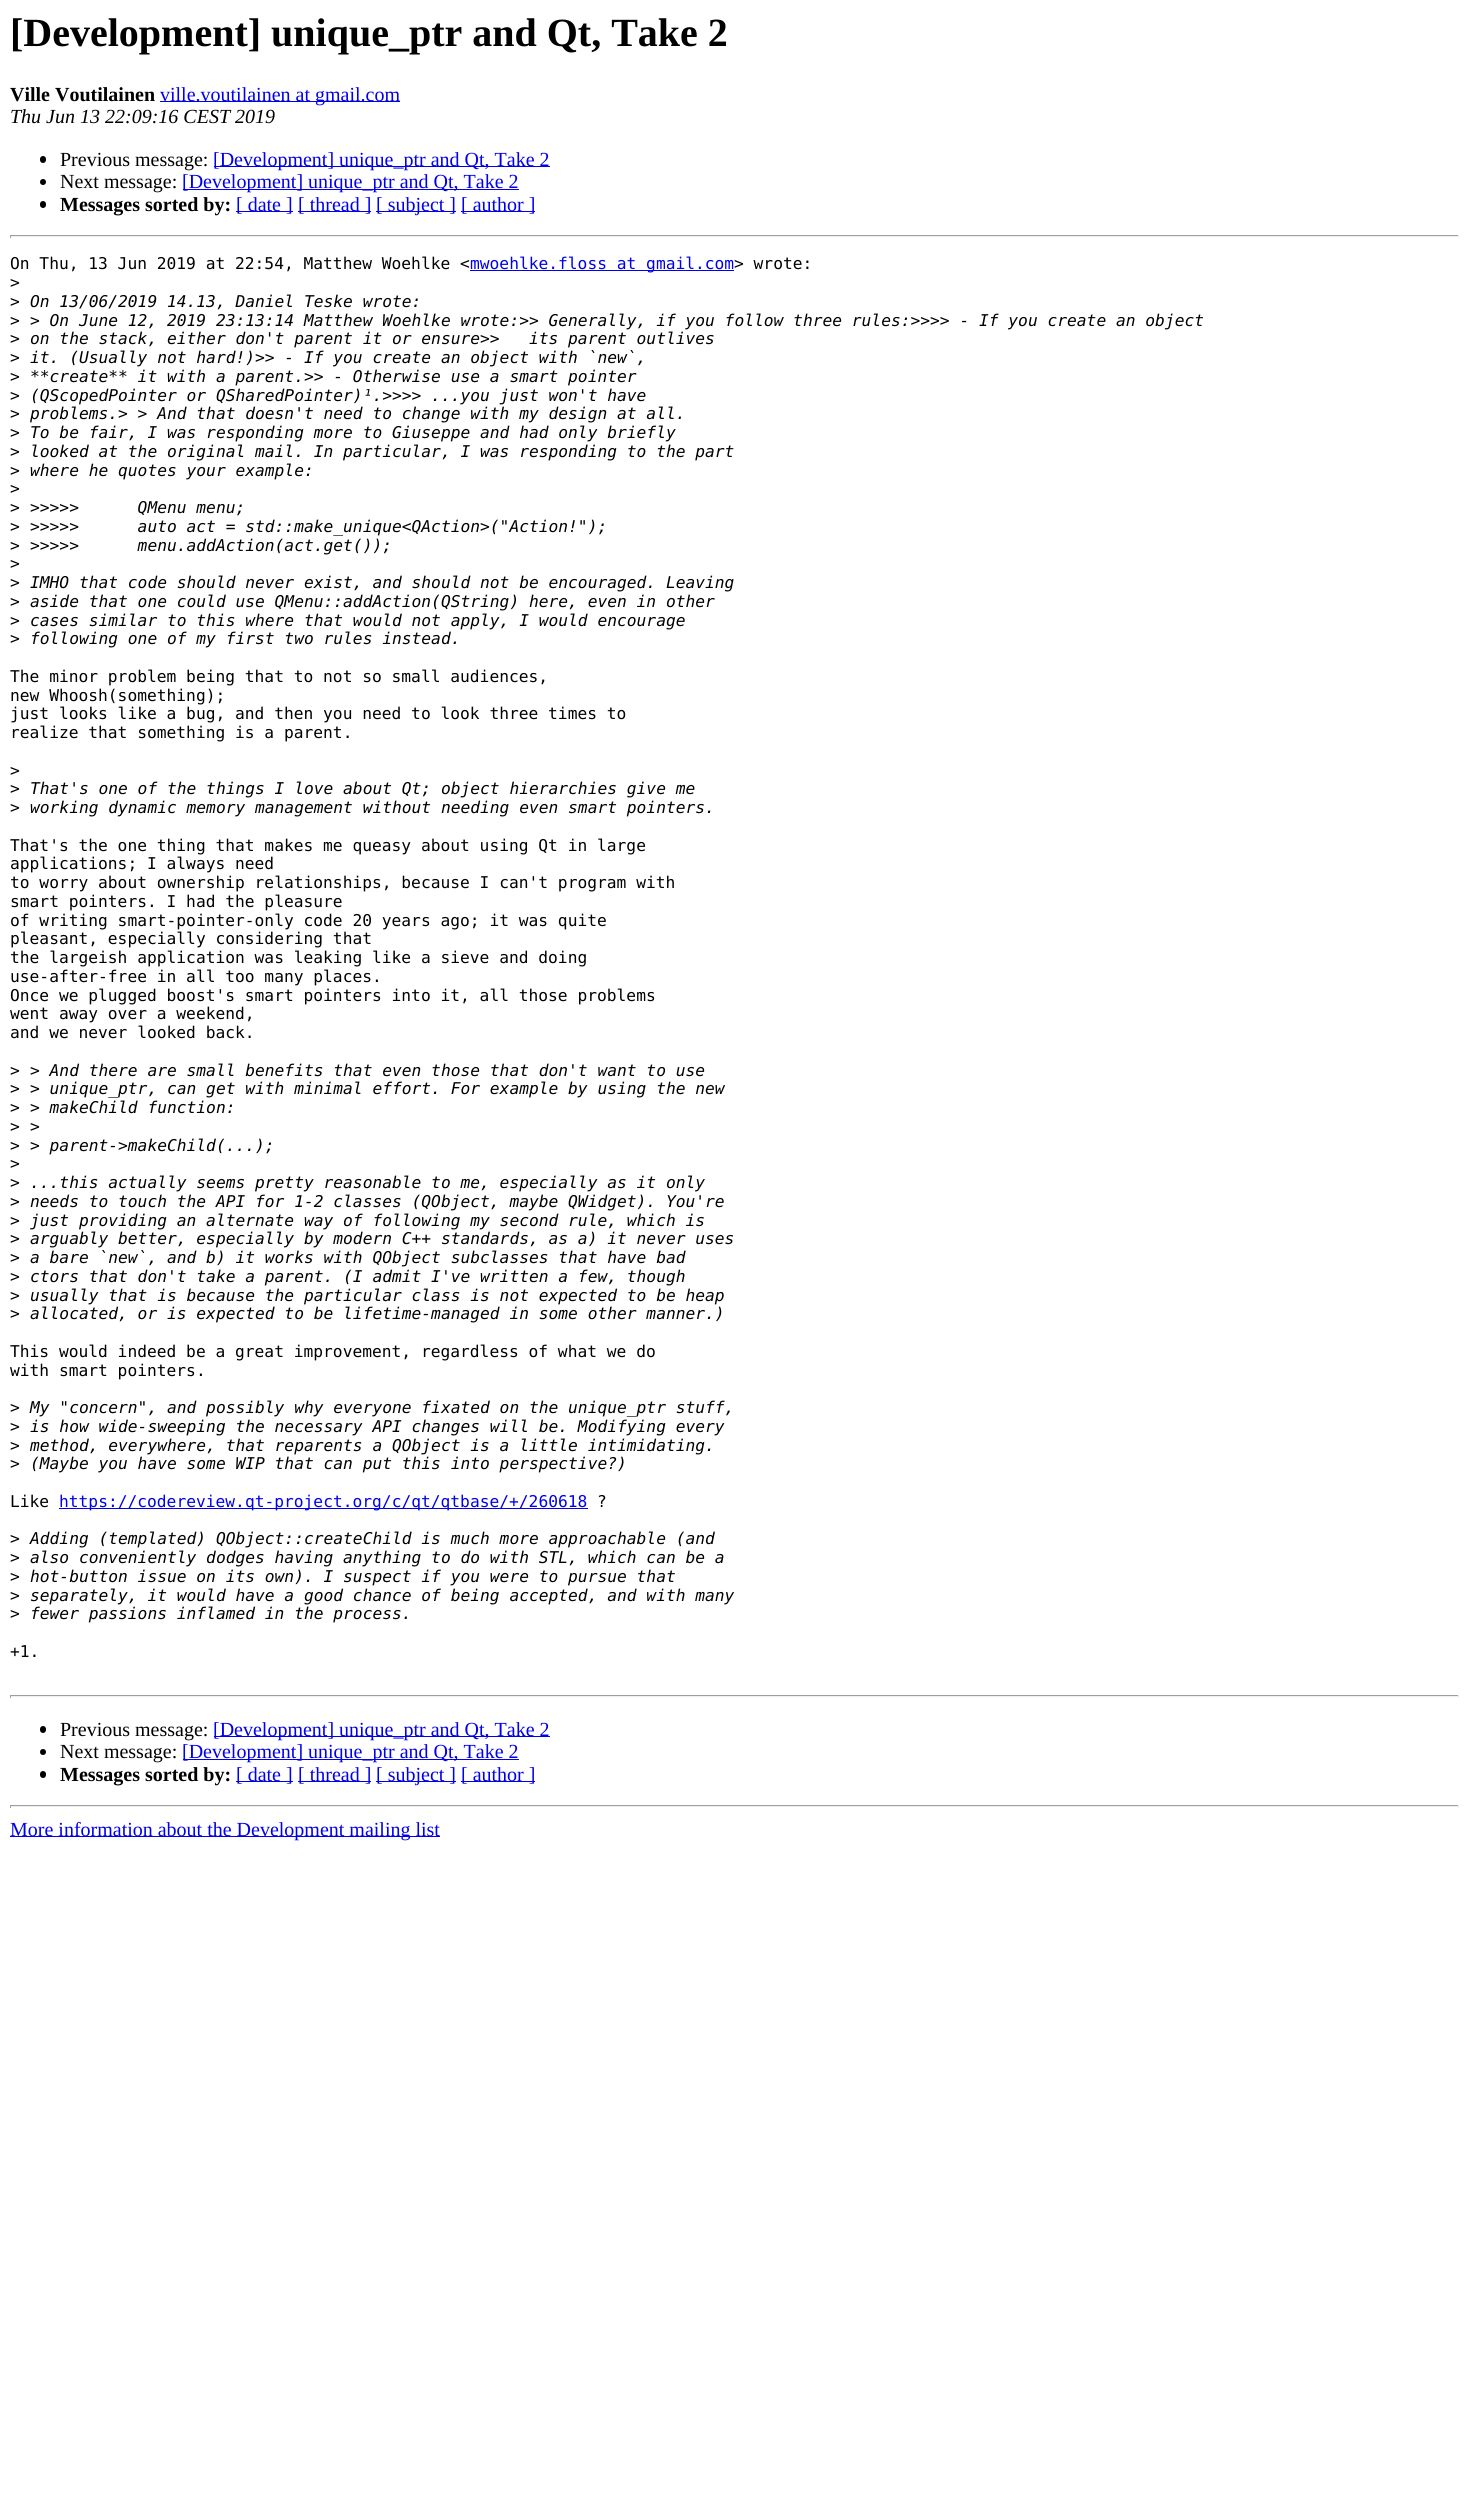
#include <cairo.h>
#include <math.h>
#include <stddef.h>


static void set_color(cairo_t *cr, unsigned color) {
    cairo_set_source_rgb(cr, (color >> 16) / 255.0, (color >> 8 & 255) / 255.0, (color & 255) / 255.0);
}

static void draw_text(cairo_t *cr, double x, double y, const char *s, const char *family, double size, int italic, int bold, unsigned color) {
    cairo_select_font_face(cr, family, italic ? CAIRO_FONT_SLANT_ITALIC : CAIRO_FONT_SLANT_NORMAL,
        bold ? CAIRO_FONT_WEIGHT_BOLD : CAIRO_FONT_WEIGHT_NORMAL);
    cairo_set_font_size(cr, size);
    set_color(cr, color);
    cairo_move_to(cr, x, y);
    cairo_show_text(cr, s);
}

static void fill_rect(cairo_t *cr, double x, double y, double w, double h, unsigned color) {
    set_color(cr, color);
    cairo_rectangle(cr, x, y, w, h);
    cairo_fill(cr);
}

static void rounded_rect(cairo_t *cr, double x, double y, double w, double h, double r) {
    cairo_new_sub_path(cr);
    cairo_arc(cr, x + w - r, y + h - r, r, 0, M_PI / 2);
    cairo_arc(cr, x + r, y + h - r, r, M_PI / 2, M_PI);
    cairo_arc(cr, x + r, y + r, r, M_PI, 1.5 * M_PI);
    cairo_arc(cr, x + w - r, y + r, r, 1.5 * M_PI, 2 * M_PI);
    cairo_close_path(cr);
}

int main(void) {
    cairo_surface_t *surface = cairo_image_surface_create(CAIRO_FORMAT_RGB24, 1468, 2501);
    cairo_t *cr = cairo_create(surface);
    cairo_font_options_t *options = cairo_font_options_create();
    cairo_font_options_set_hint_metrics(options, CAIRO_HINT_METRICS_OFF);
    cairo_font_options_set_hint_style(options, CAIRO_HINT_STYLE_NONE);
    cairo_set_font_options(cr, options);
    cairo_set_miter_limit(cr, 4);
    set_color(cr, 0xFFFFFF);
    cairo_paint(cr);
    draw_text(cr, 10, 46, "[Development] unique_ptr and Qt, Take 2", "Liberation Serif", 40, 0, 1, 0x000000);
    draw_text(cr, 10, 101, "Ville Voutilainen", "Liberation Serif", 20, 0, 1, 0x000000);
    fill_rect(cr, 160, 101, 240, 1, 0x0000EE);
    draw_text(cr, 160, 101, "ville.voutilainen at gmail.com", "Liberation Serif", 20, 0, 0, 0x0000EE);
    draw_text(cr, 10, 123, "Thu Jun 13 22:09:16 CEST 2019", "Liberation Serif", 20, 1, 0, 0x000000);
    rounded_rect(cr, 40, 156, 6, 7, 3);
    cairo_fill(cr);
    draw_text(cr, 60, 166, "Previous message:", "Liberation Serif", 20, 0, 0, 0x000000);
    fill_rect(cr, 214, 166, 336, 1, 0x0000EE);
    draw_text(cr, 213, 166, "[Development] unique_ptr and Qt, Take 2", "Liberation Serif", 20, 0, 0, 0x0000EE);
    set_color(cr, 0x000000);
    cairo_new_path(cr);
    cairo_arc(cr, 43, 182, 3, 0, 2 * M_PI);
    cairo_fill(cr);
    draw_text(cr, 60, 188, "Next message:", "Liberation Serif", 20, 0, 0, 0x000000);
    fill_rect(cr, 183, 189, 336, 1, 0x0000EE);
    draw_text(cr, 182, 188, "[Development] unique_ptr and Qt, Take 2", "Liberation Serif", 20, 0, 0, 0x0000EE);
    set_color(cr, 0x000000);
    rounded_rect(cr, 40, 201, 6, 7, 3);
    cairo_fill(cr);
    draw_text(cr, 60, 211, "Messages sorted by:", "Liberation Serif", 20, 0, 1, 0x000000);
    fill_rect(cr, 236, 211, 57, 1, 0x0000EE);
    draw_text(cr, 236, 211, "[ date ]", "Liberation Serif", 20, 0, 0, 0x0000EE);
    fill_rect(cr, 298, 211, 73, 1, 0x0000EE);
    draw_text(cr, 298, 211, "[ thread ]", "Liberation Serif", 20, 0, 0, 0x0000EE);
    fill_rect(cr, 376, 211, 80, 1, 0x0000EE);
    draw_text(cr, 376, 211, "[ subject ]", "Liberation Serif", 20, 0, 0, 0x0000EE);
    fill_rect(cr, 461, 211, 74, 1, 0x0000EE);
    draw_text(cr, 461, 211, "[ author ]", "Liberation Serif", 20, 0, 0, 0x0000EE);
    fill_rect(cr, 10, 235, 1449, 1, 0x9F9F9F);
    fill_rect(cr, 1458, 235, 1, 3, 0xEEEEEE);
    fill_rect(cr, 10, 236, 1449, 1, 0xEEEEEE);
    fill_rect(cr, 10, 235, 1, 3, 0x9F9F9F);
    draw_text(cr, 10, 269, "On Thu, 13 Jun 2019 at 22:54, Matthew Woehlke <", "DejaVu Sans Mono", 16.25, 0, 0, 0x000000);
    fill_rect(cr, 470, 270, 264, 1, 0x0000EE);
    draw_text(cr, 470, 269, "mwoehlke.floss at gmail.com", "DejaVu Sans Mono", 16.25, 0, 0, 0x0000EE);
    draw_text(cr, 734, 269, "> wrote:", "DejaVu Sans Mono", 16.25, 0, 0, 0x000000);
    draw_text(cr, 10, 288, ">", "DejaVu Sans Mono", 16.25, 0, 0, 0x000000);
    draw_text(cr, 10, 307, ">", "DejaVu Sans Mono", 16.25, 0, 0, 0x000000);
    draw_text(cr, 30, 307, "On 13/06/2019 14.13, Daniel Teske wrote:", "DejaVu Sans Mono", 16.25, 1, 0, 0x000000);
    draw_text(cr, 10, 326, ">", "DejaVu Sans Mono", 16.25, 0, 0, 0x000000);
    draw_text(cr, 30, 326, "> On June 12, 2019 23:13:14 Matthew Woehlke wrote:>> Generally, if you follow three rules:>>>> - If you create an object", "DejaVu Sans Mono", 16.25, 1, 0, 0x000000);
    draw_text(cr, 10, 344, ">", "DejaVu Sans Mono", 16.25, 0, 0, 0x000000);
    draw_text(cr, 30, 344, "on the stack, either don't parent it or ensure>>   its parent outlives", "DejaVu Sans Mono", 16.25, 1, 0, 0x000000);
    draw_text(cr, 10, 363, ">", "DejaVu Sans Mono", 16.25, 0, 0, 0x000000);
    draw_text(cr, 30, 363, "it. (Usually not hard!)>> - If you create an object with `new`,", "DejaVu Sans Mono", 16.25, 1, 0, 0x000000);
    draw_text(cr, 10, 382, ">", "DejaVu Sans Mono", 16.25, 0, 0, 0x000000);
    draw_text(cr, 30, 382, "**create** it with a parent.>> - Otherwise use a smart pointer", "DejaVu Sans Mono", 16.25, 1, 0, 0x000000);
    draw_text(cr, 10, 401, ">", "DejaVu Sans Mono", 16.25, 0, 0, 0x000000);
    draw_text(cr, 30, 401, "(QScopedPointer or QSharedPointer)¹.>>>> ...you just won't have", "DejaVu Sans Mono", 16.25, 1, 0, 0x000000);
    draw_text(cr, 10, 419, ">", "DejaVu Sans Mono", 16.25, 0, 0, 0x000000);
    draw_text(cr, 30, 419, "problems.> > And that doesn't need to change with my design at all.", "DejaVu Sans Mono", 16.25, 1, 0, 0x000000);
    draw_text(cr, 10, 438, ">", "DejaVu Sans Mono", 16.25, 0, 0, 0x000000);
    draw_text(cr, 30, 438, "To be fair, I was responding more to Giuseppe and had only briefly", "DejaVu Sans Mono", 16.25, 1, 0, 0x000000);
    draw_text(cr, 10, 457, ">", "DejaVu Sans Mono", 16.25, 0, 0, 0x000000);
    draw_text(cr, 30, 457, "looked at the original mail. In particular, I was responding to the part", "DejaVu Sans Mono", 16.25, 1, 0, 0x000000);
    draw_text(cr, 10, 476, ">", "DejaVu Sans Mono", 16.25, 0, 0, 0x000000);
    draw_text(cr, 30, 476, "where he quotes your example:", "DejaVu Sans Mono", 16.25, 1, 0, 0x000000);
    draw_text(cr, 10, 494, ">", "DejaVu Sans Mono", 16.25, 0, 0, 0x000000);
    draw_text(cr, 10, 513, ">", "DejaVu Sans Mono", 16.25, 0, 0, 0x000000);
    draw_text(cr, 30, 513, ">>>>>      QMenu menu;", "DejaVu Sans Mono", 16.25, 1, 0, 0x000000);
    draw_text(cr, 10, 532, ">", "DejaVu Sans Mono", 16.25, 0, 0, 0x000000);
    draw_text(cr, 30, 532, ">>>>>      auto act = std::make_unique<QAction>(\"Action!\");", "DejaVu Sans Mono", 16.25, 1, 0, 0x000000);
    draw_text(cr, 10, 551, ">", "DejaVu Sans Mono", 16.25, 0, 0, 0x000000);
    draw_text(cr, 30, 551, ">>>>>      menu.addAction(act.get());", "DejaVu Sans Mono", 16.25, 1, 0, 0x000000);
    draw_text(cr, 10, 569, ">", "DejaVu Sans Mono", 16.25, 0, 0, 0x000000);
    draw_text(cr, 10, 588, ">", "DejaVu Sans Mono", 16.25, 0, 0, 0x000000);
    draw_text(cr, 30, 588, "IMHO that code should never exist, and should not be encouraged. Leaving", "DejaVu Sans Mono", 16.25, 1, 0, 0x000000);
    draw_text(cr, 10, 607, ">", "DejaVu Sans Mono", 16.25, 0, 0, 0x000000);
    draw_text(cr, 30, 607, "aside that one could use QMenu::addAction(QString) here, even in other", "DejaVu Sans Mono", 16.25, 1, 0, 0x000000);
    draw_text(cr, 10, 626, ">", "DejaVu Sans Mono", 16.25, 0, 0, 0x000000);
    draw_text(cr, 30, 626, "cases similar to this where that would not apply, I would encourage", "DejaVu Sans Mono", 16.25, 1, 0, 0x000000);
    draw_text(cr, 10, 644, ">", "DejaVu Sans Mono", 16.25, 0, 0, 0x000000);
    draw_text(cr, 30, 644, "following one of my first two rules instead.", "DejaVu Sans Mono", 16.25, 1, 0, 0x000000);
    draw_text(cr, 10, 682, "The minor problem being that to not so small audiences,", "DejaVu Sans Mono", 16.25, 0, 0, 0x000000);
    draw_text(cr, 10, 701, "new Whoosh(something);", "DejaVu Sans Mono", 16.25, 0, 0, 0x000000);
    draw_text(cr, 10, 719, "just looks like a bug, and then you need to look three times to", "DejaVu Sans Mono", 16.25, 0, 0, 0x000000);
    draw_text(cr, 10, 738, "realize that something is a parent.", "DejaVu Sans Mono", 16.25, 0, 0, 0x000000);
    draw_text(cr, 10, 776, ">", "DejaVu Sans Mono", 16.25, 0, 0, 0x000000);
    draw_text(cr, 10, 794, ">", "DejaVu Sans Mono", 16.25, 0, 0, 0x000000);
    draw_text(cr, 30, 794, "That's one of the things I love about Qt; object hierarchies give me", "DejaVu Sans Mono", 16.25, 1, 0, 0x000000);
    draw_text(cr, 10, 813, ">", "DejaVu Sans Mono", 16.25, 0, 0, 0x000000);
    draw_text(cr, 30, 813, "working dynamic memory management without needing even smart pointers.", "DejaVu Sans Mono", 16.25, 1, 0, 0x000000);
    draw_text(cr, 10, 851, "That's the one thing that makes me queasy about using Qt in large", "DejaVu Sans Mono", 16.25, 0, 0, 0x000000);
    draw_text(cr, 10, 869, "applications; I always need", "DejaVu Sans Mono", 16.25, 0, 0, 0x000000);
    draw_text(cr, 10, 888, "to worry about ownership relationships, because I can't program with", "DejaVu Sans Mono", 16.25, 0, 0, 0x000000);
    draw_text(cr, 10, 907, "smart pointers. I had the pleasure", "DejaVu Sans Mono", 16.25, 0, 0, 0x000000);
    draw_text(cr, 10, 926, "of writing smart-pointer-only code 20 years ago; it was quite", "DejaVu Sans Mono", 16.25, 0, 0, 0x000000);
    draw_text(cr, 10, 944, "pleasant, especially considering that", "DejaVu Sans Mono", 16.25, 0, 0, 0x000000);
    draw_text(cr, 10, 963, "the largeish application was leaking like a sieve and doing", "DejaVu Sans Mono", 16.25, 0, 0, 0x000000);
    draw_text(cr, 10, 982, "use-after-free in all too many places.", "DejaVu Sans Mono", 16.25, 0, 0, 0x000000);
    draw_text(cr, 10, 1001, "Once we plugged boost's smart pointers into it, all those problems", "DejaVu Sans Mono", 16.25, 0, 0, 0x000000);
    draw_text(cr, 10, 1019, "went away over a weekend,", "DejaVu Sans Mono", 16.25, 0, 0, 0x000000);
    draw_text(cr, 10, 1038, "and we never looked back.", "DejaVu Sans Mono", 16.25, 0, 0, 0x000000);
    draw_text(cr, 10, 1076, ">", "DejaVu Sans Mono", 16.25, 0, 0, 0x000000);
    draw_text(cr, 30, 1076, "> And there are small benefits that even those that don't want to use", "DejaVu Sans Mono", 16.25, 1, 0, 0x000000);
    draw_text(cr, 10, 1094, ">", "DejaVu Sans Mono", 16.25, 0, 0, 0x000000);
    draw_text(cr, 30, 1094, "> unique_ptr, can get with minimal effort. For example by using the new", "DejaVu Sans Mono", 16.25, 1, 0, 0x000000);
    draw_text(cr, 10, 1113, ">", "DejaVu Sans Mono", 16.25, 0, 0, 0x000000);
    draw_text(cr, 30, 1113, "> makeChild function:", "DejaVu Sans Mono", 16.25, 1, 0, 0x000000);
    draw_text(cr, 10, 1132, ">", "DejaVu Sans Mono", 16.25, 0, 0, 0x000000);
    draw_text(cr, 30, 1132, ">", "DejaVu Sans Mono", 16.25, 1, 0, 0x000000);
    draw_text(cr, 10, 1151, ">", "DejaVu Sans Mono", 16.25, 0, 0, 0x000000);
    draw_text(cr, 30, 1151, "> parent->makeChild(...);", "DejaVu Sans Mono", 16.25, 1, 0, 0x000000);
    draw_text(cr, 10, 1169, ">", "DejaVu Sans Mono", 16.25, 0, 0, 0x000000);
    draw_text(cr, 10, 1188, ">", "DejaVu Sans Mono", 16.25, 0, 0, 0x000000);
    draw_text(cr, 30, 1188, "...this actually seems pretty reasonable to me, especially as it only", "DejaVu Sans Mono", 16.25, 1, 0, 0x000000);
    draw_text(cr, 10, 1207, ">", "DejaVu Sans Mono", 16.25, 0, 0, 0x000000);
    draw_text(cr, 30, 1207, "needs to touch the API for 1-2 classes (QObject, maybe QWidget). You're", "DejaVu Sans Mono", 16.25, 1, 0, 0x000000);
    draw_text(cr, 10, 1226, ">", "DejaVu Sans Mono", 16.25, 0, 0, 0x000000);
    draw_text(cr, 30, 1226, "just providing an alternate way of following my second rule, which is", "DejaVu Sans Mono", 16.25, 1, 0, 0x000000);
    draw_text(cr, 10, 1244, ">", "DejaVu Sans Mono", 16.25, 0, 0, 0x000000);
    draw_text(cr, 30, 1244, "arguably better, especially by modern C++ standards, as a) it never uses", "DejaVu Sans Mono", 16.25, 1, 0, 0x000000);
    draw_text(cr, 10, 1263, ">", "DejaVu Sans Mono", 16.25, 0, 0, 0x000000);
    draw_text(cr, 30, 1263, "a bare `new`, and b) it works with QObject subclasses that have bad", "DejaVu Sans Mono", 16.25, 1, 0, 0x000000);
    draw_text(cr, 10, 1282, ">", "DejaVu Sans Mono", 16.25, 0, 0, 0x000000);
    draw_text(cr, 30, 1282, "ctors that don't take a parent. (I admit I've written a few, though", "DejaVu Sans Mono", 16.25, 1, 0, 0x000000);
    draw_text(cr, 10, 1301, ">", "DejaVu Sans Mono", 16.25, 0, 0, 0x000000);
    draw_text(cr, 30, 1301, "usually that is because the particular class is not expected to be heap", "DejaVu Sans Mono", 16.25, 1, 0, 0x000000);
    draw_text(cr, 10, 1319, ">", "DejaVu Sans Mono", 16.25, 0, 0, 0x000000);
    draw_text(cr, 30, 1319, "allocated, or is expected to be lifetime-managed in some other manner.)", "DejaVu Sans Mono", 16.25, 1, 0, 0x000000);
    draw_text(cr, 10, 1357, "This would indeed be a great improvement, regardless of what we do", "DejaVu Sans Mono", 16.25, 0, 0, 0x000000);
    draw_text(cr, 10, 1376, "with smart pointers.", "DejaVu Sans Mono", 16.25, 0, 0, 0x000000);
    draw_text(cr, 10, 1413, ">", "DejaVu Sans Mono", 16.25, 0, 0, 0x000000);
    draw_text(cr, 30, 1413, "My \"concern\", and possibly why everyone fixated on the unique_ptr stuff,", "DejaVu Sans Mono", 16.25, 1, 0, 0x000000);
    draw_text(cr, 10, 1432, ">", "DejaVu Sans Mono", 16.25, 0, 0, 0x000000);
    draw_text(cr, 30, 1432, "is how wide-sweeping the necessary API changes will be. Modifying every", "DejaVu Sans Mono", 16.25, 1, 0, 0x000000);
    draw_text(cr, 10, 1451, ">", "DejaVu Sans Mono", 16.25, 0, 0, 0x000000);
    draw_text(cr, 30, 1451, "method, everywhere, that reparents a QObject is a little intimidating.", "DejaVu Sans Mono", 16.25, 1, 0, 0x000000);
    draw_text(cr, 10, 1469, ">", "DejaVu Sans Mono", 16.25, 0, 0, 0x000000);
    draw_text(cr, 30, 1469, "(Maybe you have some WIP that can put this into perspective?)", "DejaVu Sans Mono", 16.25, 1, 0, 0x000000);
    draw_text(cr, 10, 1507, "Like", "DejaVu Sans Mono", 16.25, 0, 0, 0x000000);
    fill_rect(cr, 59, 1508, 529, 1, 0x0000EE);
    draw_text(cr, 59, 1507, "https://codereview.qt-project.org/c/qt/qtbase/+/260618", "DejaVu Sans Mono", 16.25, 0, 0, 0x0000EE);
    draw_text(cr, 597, 1507, "?", "DejaVu Sans Mono", 16.25, 0, 0, 0x000000);
    draw_text(cr, 10, 1544, ">", "DejaVu Sans Mono", 16.25, 0, 0, 0x000000);
    draw_text(cr, 30, 1544, "Adding (templated) QObject::createChild is much more approachable (and", "DejaVu Sans Mono", 16.25, 1, 0, 0x000000);
    draw_text(cr, 10, 1563, ">", "DejaVu Sans Mono", 16.25, 0, 0, 0x000000);
    draw_text(cr, 30, 1563, "also conveniently dodges having anything to do with STL, which can be a", "DejaVu Sans Mono", 16.25, 1, 0, 0x000000);
    draw_text(cr, 10, 1582, ">", "DejaVu Sans Mono", 16.25, 0, 0, 0x000000);
    draw_text(cr, 30, 1582, "hot-button issue on its own). I suspect if you were to pursue that", "DejaVu Sans Mono", 16.25, 1, 0, 0x000000);
    draw_text(cr, 10, 1601, ">", "DejaVu Sans Mono", 16.25, 0, 0, 0x000000);
    draw_text(cr, 30, 1601, "separately, it would have a good chance of being accepted, and with many", "DejaVu Sans Mono", 16.25, 1, 0, 0x000000);
    draw_text(cr, 10, 1619, ">", "DejaVu Sans Mono", 16.25, 0, 0, 0x000000);
    draw_text(cr, 30, 1619, "fewer passions inflamed in the process.", "DejaVu Sans Mono", 16.25, 1, 0, 0x000000);
    draw_text(cr, 10, 1657, "+1.", "DejaVu Sans Mono", 16.25, 0, 0, 0x000000);
    fill_rect(cr, 10, 1695, 1449, 1, 0x9F9F9F);
    fill_rect(cr, 1458, 1695, 1, 3, 0xEEEEEE);
    fill_rect(cr, 10, 1696, 1449, 1, 0xEEEEEE);
    fill_rect(cr, 10, 1695, 1, 3, 0x9F9F9F);
    set_color(cr, 0x000000);
    rounded_rect(cr, 40, 1726, 6, 7, 3);
    cairo_fill(cr);
    draw_text(cr, 60, 1736, "Previous message:", "Liberation Serif", 20, 0, 0, 0x000000);
    fill_rect(cr, 214, 1736, 336, 1, 0x0000EE);
    draw_text(cr, 213, 1736, "[Development] unique_ptr and Qt, Take 2", "Liberation Serif", 20, 0, 0, 0x0000EE);
    set_color(cr, 0x000000);
    cairo_new_path(cr);
    cairo_arc(cr, 43, 1752, 3, 0, 2 * M_PI);
    cairo_fill(cr);
    draw_text(cr, 60, 1758, "Next message:", "Liberation Serif", 20, 0, 0, 0x000000);
    fill_rect(cr, 183, 1759, 336, 1, 0x0000EE);
    draw_text(cr, 182, 1758, "[Development] unique_ptr and Qt, Take 2", "Liberation Serif", 20, 0, 0, 0x0000EE);
    set_color(cr, 0x000000);
    rounded_rect(cr, 40, 1771, 6, 7, 3);
    cairo_fill(cr);
    draw_text(cr, 60, 1781, "Messages sorted by:", "Liberation Serif", 20, 0, 1, 0x000000);
    fill_rect(cr, 236, 1781, 57, 1, 0x0000EE);
    draw_text(cr, 236, 1781, "[ date ]", "Liberation Serif", 20, 0, 0, 0x0000EE);
    fill_rect(cr, 298, 1781, 73, 1, 0x0000EE);
    draw_text(cr, 298, 1781, "[ thread ]", "Liberation Serif", 20, 0, 0, 0x0000EE);
    fill_rect(cr, 376, 1781, 80, 1, 0x0000EE);
    draw_text(cr, 376, 1781, "[ subject ]", "Liberation Serif", 20, 0, 0, 0x0000EE);
    fill_rect(cr, 461, 1781, 74, 1, 0x0000EE);
    draw_text(cr, 461, 1781, "[ author ]", "Liberation Serif", 20, 0, 0, 0x0000EE);
    fill_rect(cr, 10, 1805, 1449, 1, 0x9F9F9F);
    fill_rect(cr, 1458, 1805, 1, 3, 0xEEEEEE);
    fill_rect(cr, 10, 1806, 1449, 1, 0xEEEEEE);
    fill_rect(cr, 10, 1805, 1, 3, 0x9F9F9F);
    fill_rect(cr, 10, 1836, 430, 1, 0x0000EE);
    draw_text(cr, 10, 1836, "More information about the Development mailing list", "Liberation Serif", 20, 0, 0, 0x0000EE);
    cairo_surface_write_to_png(surface, "output.png");
    cairo_font_options_destroy(options);
    cairo_destroy(cr);
    cairo_surface_destroy(surface);
    return 0;
}
